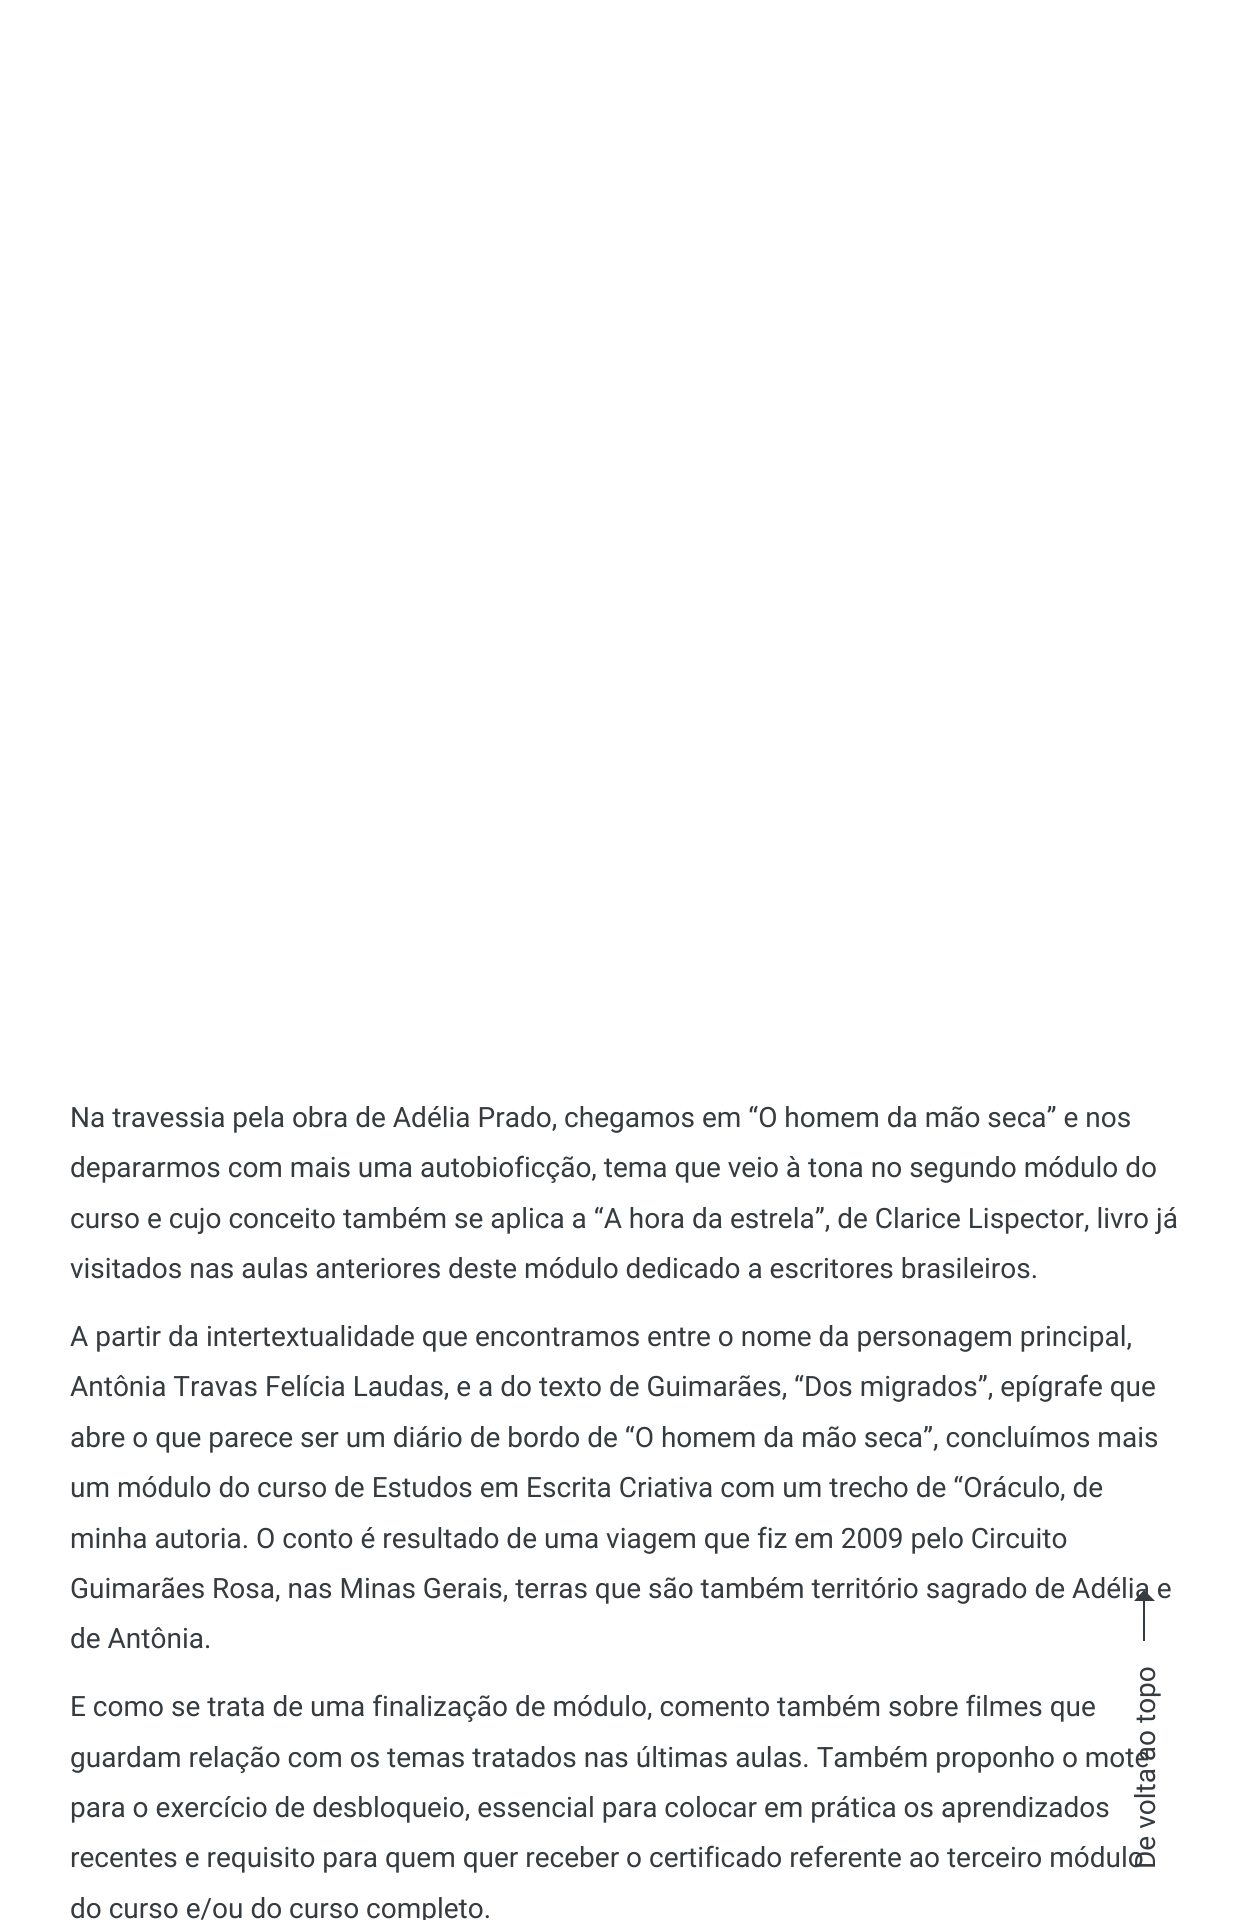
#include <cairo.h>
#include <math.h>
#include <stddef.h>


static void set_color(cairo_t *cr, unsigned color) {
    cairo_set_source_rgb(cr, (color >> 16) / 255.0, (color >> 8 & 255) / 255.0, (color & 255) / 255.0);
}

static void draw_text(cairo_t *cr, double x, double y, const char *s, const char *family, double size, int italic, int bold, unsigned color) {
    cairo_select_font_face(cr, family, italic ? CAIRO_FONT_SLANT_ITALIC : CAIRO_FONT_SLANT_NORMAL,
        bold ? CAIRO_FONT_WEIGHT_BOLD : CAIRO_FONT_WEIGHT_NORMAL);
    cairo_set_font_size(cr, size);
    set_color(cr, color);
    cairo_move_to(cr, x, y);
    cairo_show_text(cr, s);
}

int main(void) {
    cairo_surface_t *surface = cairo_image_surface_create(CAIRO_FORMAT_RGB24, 1248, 1920);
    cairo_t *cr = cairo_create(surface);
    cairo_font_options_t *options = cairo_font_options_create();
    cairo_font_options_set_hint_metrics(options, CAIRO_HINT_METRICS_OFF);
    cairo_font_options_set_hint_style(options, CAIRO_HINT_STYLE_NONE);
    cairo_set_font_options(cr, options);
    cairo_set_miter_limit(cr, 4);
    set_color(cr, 0xFFFFFF);
    cairo_paint(cr);
    draw_text(cr, 70, 1127, "Na travessia pela obra de Adélia Prado, chegamos em “O homem da mão seca” e nos", "Roboto", 28, 0, 0, 0x363B40);
    draw_text(cr, 70, 1177, "depararmos com mais uma autobioficção, tema que veio à tona no segundo módulo do", "Roboto", 28, 0, 0, 0x363B40);
    draw_text(cr, 70, 1228, "curso e cujo conceito também se aplica a “A hora da estrela”, de Clarice Lispector, livro já", "Roboto", 28, 0, 0, 0x363B40);
    draw_text(cr, 70, 1278, "visitados nas aulas anteriores deste módulo dedicado a escritores brasileiros.", "Roboto", 28, 0, 0, 0x363B40);
    draw_text(cr, 70, 1346, "A partir da intertextualidade que encontramos entre o nome da personagem principal,", "Roboto", 28, 0, 0, 0x363B40);
    draw_text(cr, 70, 1396, "Antônia Travas Felícia Laudas, e a do texto de Guimarães, “Dos migrados”, epígrafe que", "Roboto", 28, 0, 0, 0x363B40);
    draw_text(cr, 70, 1447, "abre o que parece ser um diário de bordo de “O homem da mão seca”, concluímos mais", "Roboto", 28, 0, 0, 0x363B40);
    draw_text(cr, 70, 1497, "um módulo do curso de Estudos em Escrita Criativa com um trecho de “Oráculo, de", "Roboto", 28, 0, 0, 0x363B40);
    draw_text(cr, 70, 1548, "minha autoria. O conto é resultado de uma viagem que fiz em 2009 pelo Circuito", "Roboto", 28, 0, 0, 0x363B40);
    draw_text(cr, 70, 1598, "Guimarães Rosa, nas Minas Gerais, terras que são também território sagrado de Adélia e", "Roboto", 28, 0, 0, 0x363B40);
    draw_text(cr, 70, 1648, "de Antônia.", "Roboto", 28, 0, 0, 0x363B40);
    draw_text(cr, 70, 1716, "E como se trata de uma finalização de módulo, comento também sobre filmes que", "Roboto", 28, 0, 0, 0x363B40);
    draw_text(cr, 70, 1767, "guardam relação com os temas tratados nas últimas aulas. Também proponho o mote", "Roboto", 28, 0, 0, 0x363B40);
    draw_text(cr, 70, 1817, "para o exercício de desbloqueio, essencial para colocar em prática os aprendizados", "Roboto", 28, 0, 0, 0x363B40);
    draw_text(cr, 70, 1867, "recentes e requisito para quem quer receber o certificado referente ao terceiro módulo", "Roboto", 28, 0, 0, 0x363B40);
    draw_text(cr, 70, 1918, "do curso e/ou do curso completo.", "Roboto", 28, 0, 0, 0x363B40);
    cairo_new_path(cr);
    cairo_move_to(cr, 1144, 1590);
    cairo_line_to(cr, 1155, 1601);
    cairo_line_to(cr, 1134, 1601);
    cairo_close_path(cr);
    cairo_move_to(cr, 1143, 1641);
    cairo_line_to(cr, 1143, 1600);
    cairo_line_to(cr, 1145, 1600);
    cairo_line_to(cr, 1145, 1641);
    cairo_close_path(cr);
    cairo_fill(cr);
    cairo_save(cr);
    cairo_translate(cr, 1155, 1869);
    cairo_rotate(cr, -90 * M_PI / 180);
    draw_text(cr, 0, 0, "De volta ao topo", "Roboto", 28, 0, 0, 0x363B40);
    cairo_restore(cr);
    cairo_surface_write_to_png(surface, "output.png");
    cairo_font_options_destroy(options);
    cairo_destroy(cr);
    cairo_surface_destroy(surface);
    return 0;
}
